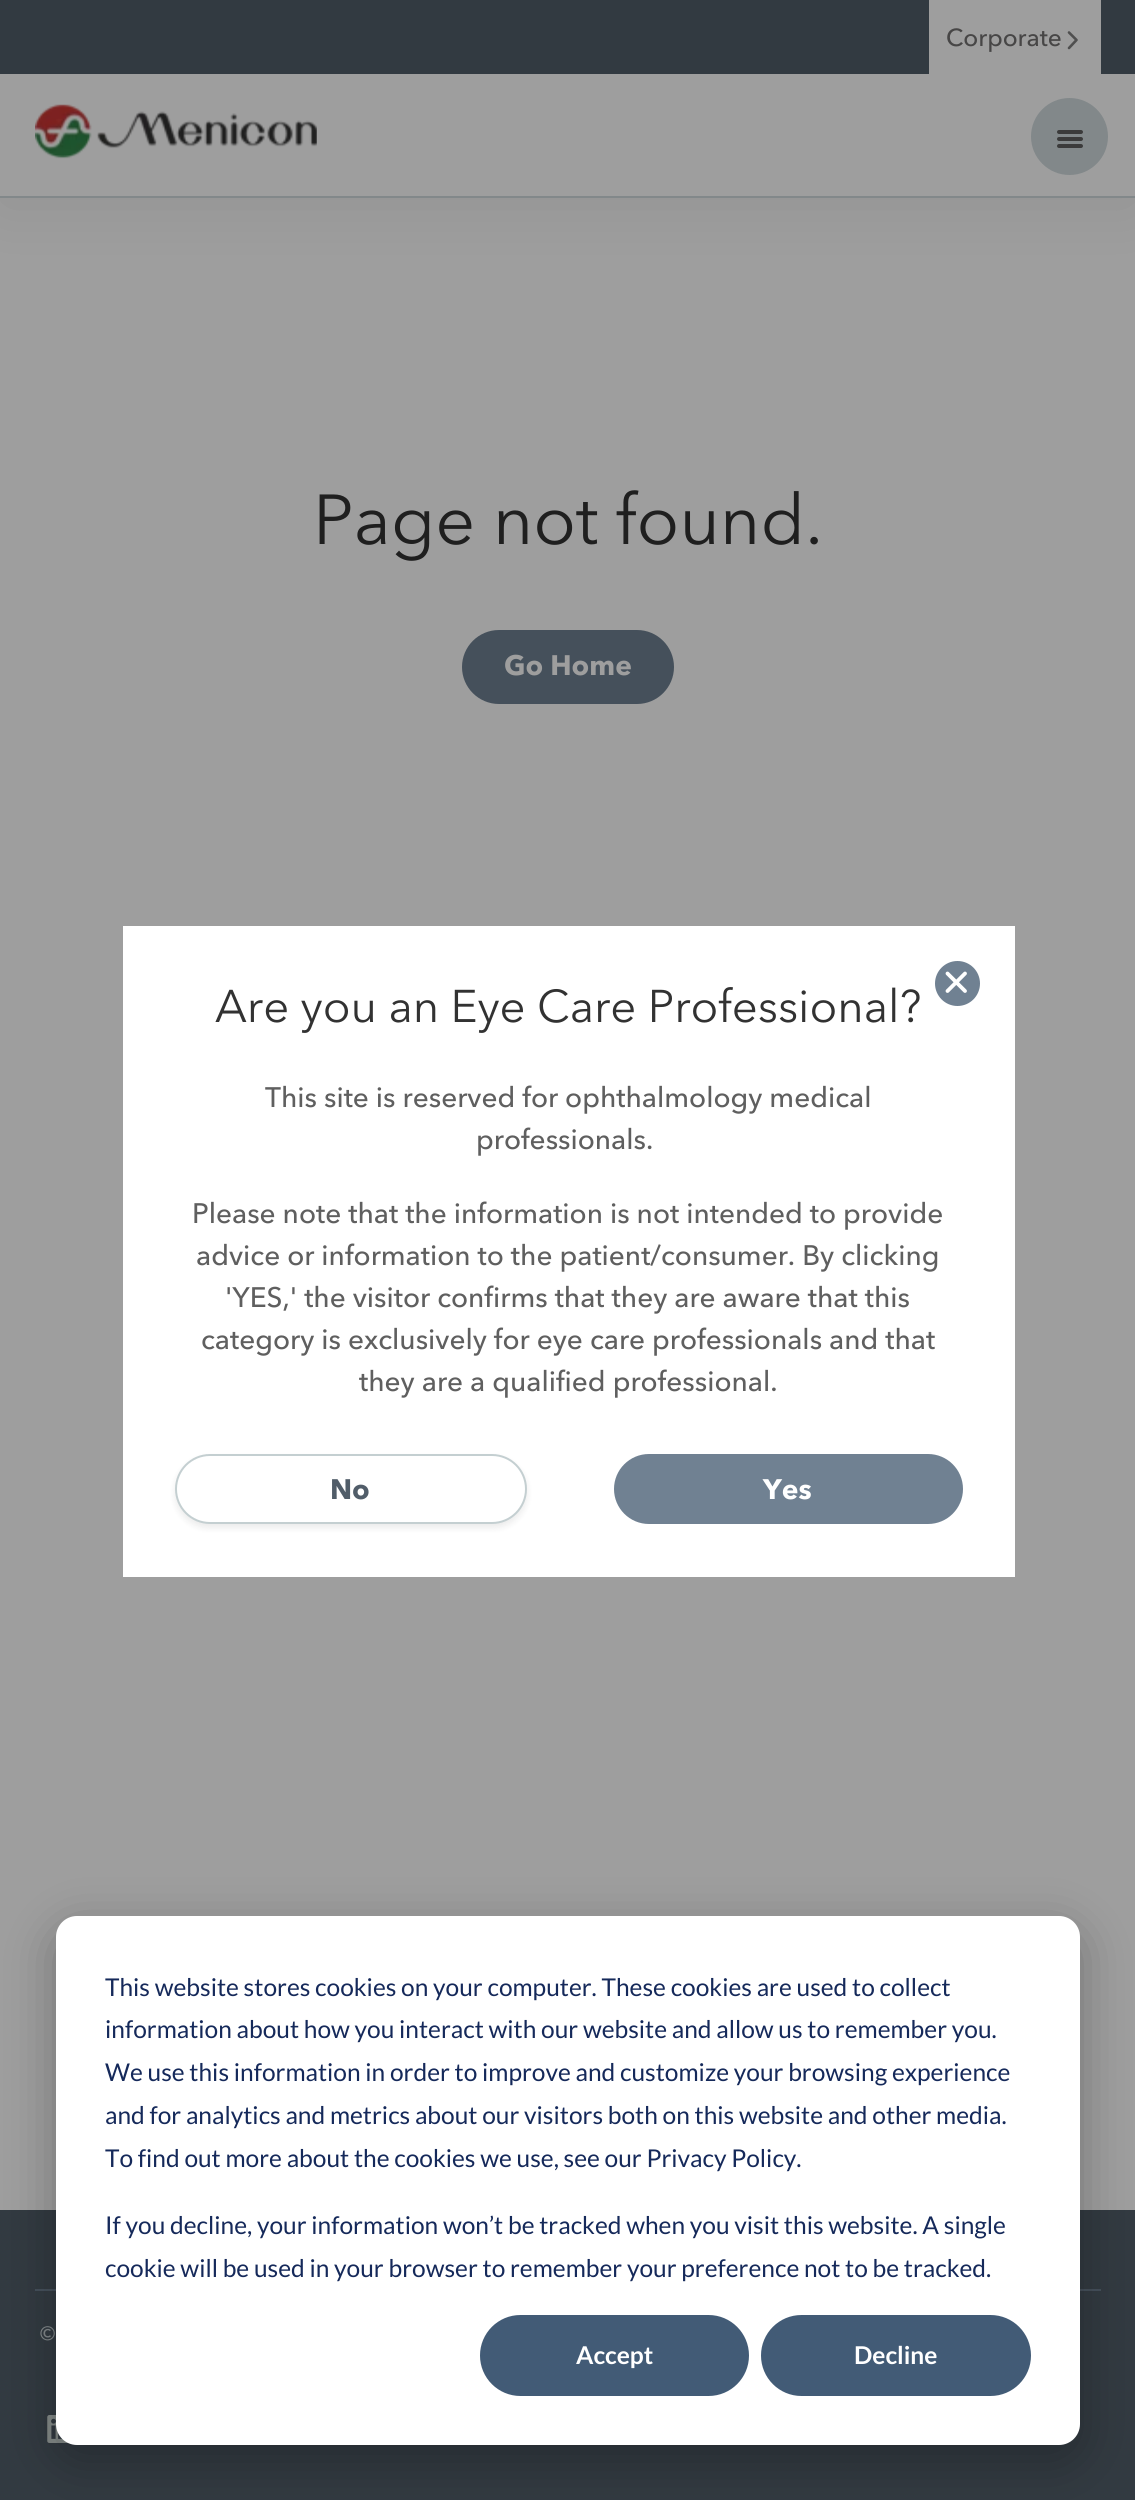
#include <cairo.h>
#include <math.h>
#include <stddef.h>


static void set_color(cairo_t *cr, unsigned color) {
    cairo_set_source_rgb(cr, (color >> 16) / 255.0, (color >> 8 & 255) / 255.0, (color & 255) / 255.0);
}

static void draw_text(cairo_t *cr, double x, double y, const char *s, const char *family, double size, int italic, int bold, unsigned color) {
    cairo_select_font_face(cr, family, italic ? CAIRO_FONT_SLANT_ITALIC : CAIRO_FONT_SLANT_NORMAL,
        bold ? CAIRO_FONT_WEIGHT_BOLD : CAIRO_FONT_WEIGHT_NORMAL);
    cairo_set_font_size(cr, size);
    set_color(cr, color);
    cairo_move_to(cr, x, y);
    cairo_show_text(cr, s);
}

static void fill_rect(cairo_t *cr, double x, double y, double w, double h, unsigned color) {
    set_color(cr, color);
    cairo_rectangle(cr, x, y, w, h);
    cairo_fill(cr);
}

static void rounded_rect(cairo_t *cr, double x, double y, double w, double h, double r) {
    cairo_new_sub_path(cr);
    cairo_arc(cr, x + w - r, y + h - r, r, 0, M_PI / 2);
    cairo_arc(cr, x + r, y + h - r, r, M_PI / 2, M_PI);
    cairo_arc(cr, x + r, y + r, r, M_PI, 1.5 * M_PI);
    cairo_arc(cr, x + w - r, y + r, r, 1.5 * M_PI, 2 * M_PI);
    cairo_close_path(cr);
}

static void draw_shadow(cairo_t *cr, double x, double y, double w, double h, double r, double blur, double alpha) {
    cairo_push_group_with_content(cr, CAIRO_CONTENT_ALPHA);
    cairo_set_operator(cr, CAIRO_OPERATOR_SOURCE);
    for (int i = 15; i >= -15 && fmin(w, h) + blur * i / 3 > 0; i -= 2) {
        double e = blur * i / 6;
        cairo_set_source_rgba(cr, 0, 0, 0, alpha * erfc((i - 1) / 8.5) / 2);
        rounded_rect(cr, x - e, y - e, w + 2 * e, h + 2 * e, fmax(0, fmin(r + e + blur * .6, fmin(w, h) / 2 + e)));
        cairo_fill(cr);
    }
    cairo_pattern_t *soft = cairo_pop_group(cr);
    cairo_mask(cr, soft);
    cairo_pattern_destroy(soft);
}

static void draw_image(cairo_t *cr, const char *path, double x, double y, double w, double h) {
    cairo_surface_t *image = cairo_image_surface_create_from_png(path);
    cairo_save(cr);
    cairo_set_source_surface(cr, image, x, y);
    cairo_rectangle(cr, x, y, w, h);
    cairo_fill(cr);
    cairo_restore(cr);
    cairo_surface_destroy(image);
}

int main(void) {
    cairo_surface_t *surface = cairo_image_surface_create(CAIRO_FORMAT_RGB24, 1135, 2500);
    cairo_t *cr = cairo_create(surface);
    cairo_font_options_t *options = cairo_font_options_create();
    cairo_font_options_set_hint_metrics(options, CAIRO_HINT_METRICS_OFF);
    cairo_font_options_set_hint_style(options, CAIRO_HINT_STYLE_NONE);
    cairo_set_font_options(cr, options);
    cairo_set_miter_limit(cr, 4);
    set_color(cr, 0x9E9E9E);
    cairo_paint(cr);
    set_color(cr, 0x000000);
    draw_shadow(cr, 0, 81, 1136, 124, 0, 33, 0.08);
    fill_rect(cr, 0, 74, 1135, 122, 0x9E9E9E);
    fill_rect(cr, 0, 196, 1135, 2, 0x82888A);
    draw_image(cr, "assets/img1.png", 35, 104, 282, 55);
    cairo_arc(cr, 1069.5, 136.5, 38.5, 0, 2 * M_PI);
    cairo_fill(cr);
    set_color(cr, 0x3B3B3B);
    rounded_rect(cr, 1057, 130, 26, 4, 2);
    cairo_fill(cr);
    rounded_rect(cr, 1057, 137, 26, 4, 2);
    cairo_fill(cr);
    rounded_rect(cr, 1057, 144, 26, 4, 2);
    cairo_fill(cr);
    fill_rect(cr, 0, 0, 1135, 74, 0x323A41);
    fill_rect(cr, 929, 0, 172, 74, 0x9E9E9E);
    draw_text(cr, 946, 46, "Corporate", "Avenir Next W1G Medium", 24.5, 0, 0, 0x474646);
    cairo_new_path(cr);
    cairo_move_to(cr, 1069, 32.5);
    cairo_line_to(cr, 1076.5, 40);
    cairo_line_to(cr, 1069, 48);
    set_color(cr, 0x4F4F4F);
    cairo_set_line_width(cr, 2.6);
    cairo_set_line_cap(cr, CAIRO_LINE_CAP_ROUND);
    cairo_set_line_join(cr, CAIRO_LINE_JOIN_ROUND);
    cairo_stroke(cr);
    fill_rect(cr, 123, 926, 892, 651, 0xFFFFFF);
    draw_text(cr, 215, 1022, "Are you an Eye Care Professional?", "Avenir Next W1G", 45.5, 0, 0, 0x323232);
    draw_text(cr, 265, 1107, "This site is reserved for ophthalmology medical", "Avenir Next W1G Medium", 28, 0, 0, 0x5F5F5F);
    draw_text(cr, 476, 1149, "professionals.", "Avenir Next W1G Medium", 28, 0, 0, 0x5F5F5F);
    draw_text(cr, 192, 1223, "Please note that the information is not intended to provide", "Avenir Next W1G Medium", 28, 0, 0, 0x5F5F5F);
    draw_text(cr, 196, 1265, "advice or information to the patient/consumer. By clicking", "Avenir Next W1G Medium", 28, 0, 0, 0x5F5F5F);
    draw_text(cr, 225, 1307, "'YES,' the visitor confirms that they are aware that this", "Avenir Next W1G Medium", 28, 0, 0, 0x5F5F5F);
    draw_text(cr, 201, 1349, "category is exclusively for eye care professionals and that", "Avenir Next W1G Medium", 28, 0, 0, 0x5F5F5F);
    draw_text(cr, 359, 1391, "they are a qualified professional.", "Avenir Next W1G Medium", 28, 0, 0, 0x5F5F5F);
    set_color(cr, 0x000000);
    draw_shadow(cr, 175, 1458, 352, 70, 35, 3.5, 0.08);
    set_color(cr, 0xFFFFFF);
    rounded_rect(cr, 176, 1455, 350, 68, 34);
    cairo_fill_preserve(cr);
    set_color(cr, 0xC4CFD1);
    cairo_set_line_width(cr, 2);
    cairo_set_line_cap(cr, CAIRO_LINE_CAP_BUTT);
    cairo_set_line_join(cr, CAIRO_LINE_JOIN_MITER);
    cairo_stroke(cr);
    draw_text(cr, 330, 1499, "No", "Avenir Next W1G", 28, 0, 1, 0x515D69);
    set_color(cr, 0x708192);
    rounded_rect(cr, 614, 1454, 349, 70, 35);
    cairo_fill(cr);
    draw_text(cr, 763, 1499, "Yes", "Avenir Next W1G", 28, 0, 1, 0xFFFFFF);
    set_color(cr, 0x708192);
    cairo_new_path(cr);
    cairo_arc(cr, 957.5, 983.5, 22.5, 0, 2 * M_PI);
    cairo_fill(cr);
    cairo_new_path(cr);
    cairo_move_to(cr, 947.5, 991);
    cairo_line_to(cr, 965, 973.5);
    cairo_move_to(cr, 947.5, 973.5);
    cairo_line_to(cr, 965, 991);
    set_color(cr, 0xFFFFFF);
    cairo_set_line_width(cr, 3.8);
    cairo_set_line_cap(cr, CAIRO_LINE_CAP_ROUND);
    cairo_stroke(cr);
    draw_text(cr, 313, 544, "Page not found.", "Avenir Next W1G", 70, 0, 0, 0x1F1F1F);
    set_color(cr, 0x45505B);
    rounded_rect(cr, 462, 630, 212, 74, 37);
    cairo_fill(cr);
    draw_text(cr, 504, 675, "Go Home", "Avenir Next W1G", 28, 0, 1, 0x9E9E9E);
    fill_rect(cr, 0, 2210, 1135, 290, 0x323A41);
    fill_rect(cr, 35, 2289, 1066, 2, 0x45505B);
    draw_text(cr, 40, 2340, "©", "Avenir Next W1G Medium", 19, 0, 0, 0x82888A);
    draw_image(cr, "assets/img2.png", 47, 2415, 21, 28);
    set_color(cr, 0x000000);
    draw_shadow(cr, 56, 1930, 1024, 529, 21, 24.5, 0.28);
    set_color(cr, 0xFFFFFF);
    rounded_rect(cr, 56, 1916, 1024, 529, 21);
    cairo_fill(cr);
    draw_text(cr, 105, 1996, "This website stores cookies on your computer. These cookies are used to collect", "Lato", 24.5, 0, 0, 0x15295A);
    draw_text(cr, 105, 2038, "information about how you interact with our website and allow us to remember you.", "Lato", 24.5, 0, 0, 0x15295A);
    draw_text(cr, 105, 2081, "We use this information in order to improve and customize your browsing experience", "Lato", 24.5, 0, 0, 0x15295A);
    draw_text(cr, 105, 2124, "and for analytics and metrics about our visitors both on this website and other media.", "Lato", 24.5, 0, 0, 0x15295A);
    draw_text(cr, 105, 2167, "To find out more about the cookies we use, see our Privacy Policy.", "Lato", 24.5, 0, 0, 0x15295A);
    draw_text(cr, 105, 2234, "If you decline, your information won’t be tracked when you visit this website. A single", "Lato", 24.5, 0, 0, 0x15295A);
    draw_text(cr, 105, 2277, "cookie will be used in your browser to remember your preference not to be tracked.", "Lato", 24.5, 0, 0, 0x15295A);
    set_color(cr, 0x425B76);
    rounded_rect(cr, 481, 2316, 267, 79, 39.5);
    cairo_fill_preserve(cr);
    cairo_set_line_width(cr, 2);
    cairo_set_line_cap(cr, CAIRO_LINE_CAP_BUTT);
    cairo_stroke(cr);
    draw_text(cr, 576, 2364, "Accept", "Lato", 24.5, 0, 1, 0xFFFFFF);
    set_color(cr, 0x425B76);
    rounded_rect(cr, 762, 2316, 268, 79, 39.5);
    cairo_fill_preserve(cr);
    cairo_stroke(cr);
    draw_text(cr, 854, 2364, "Decline", "Lato", 24.5, 0, 1, 0xFFFFFF);
    cairo_surface_write_to_png(surface, "output.png");
    cairo_font_options_destroy(options);
    cairo_destroy(cr);
    cairo_surface_destroy(surface);
    return 0;
}
